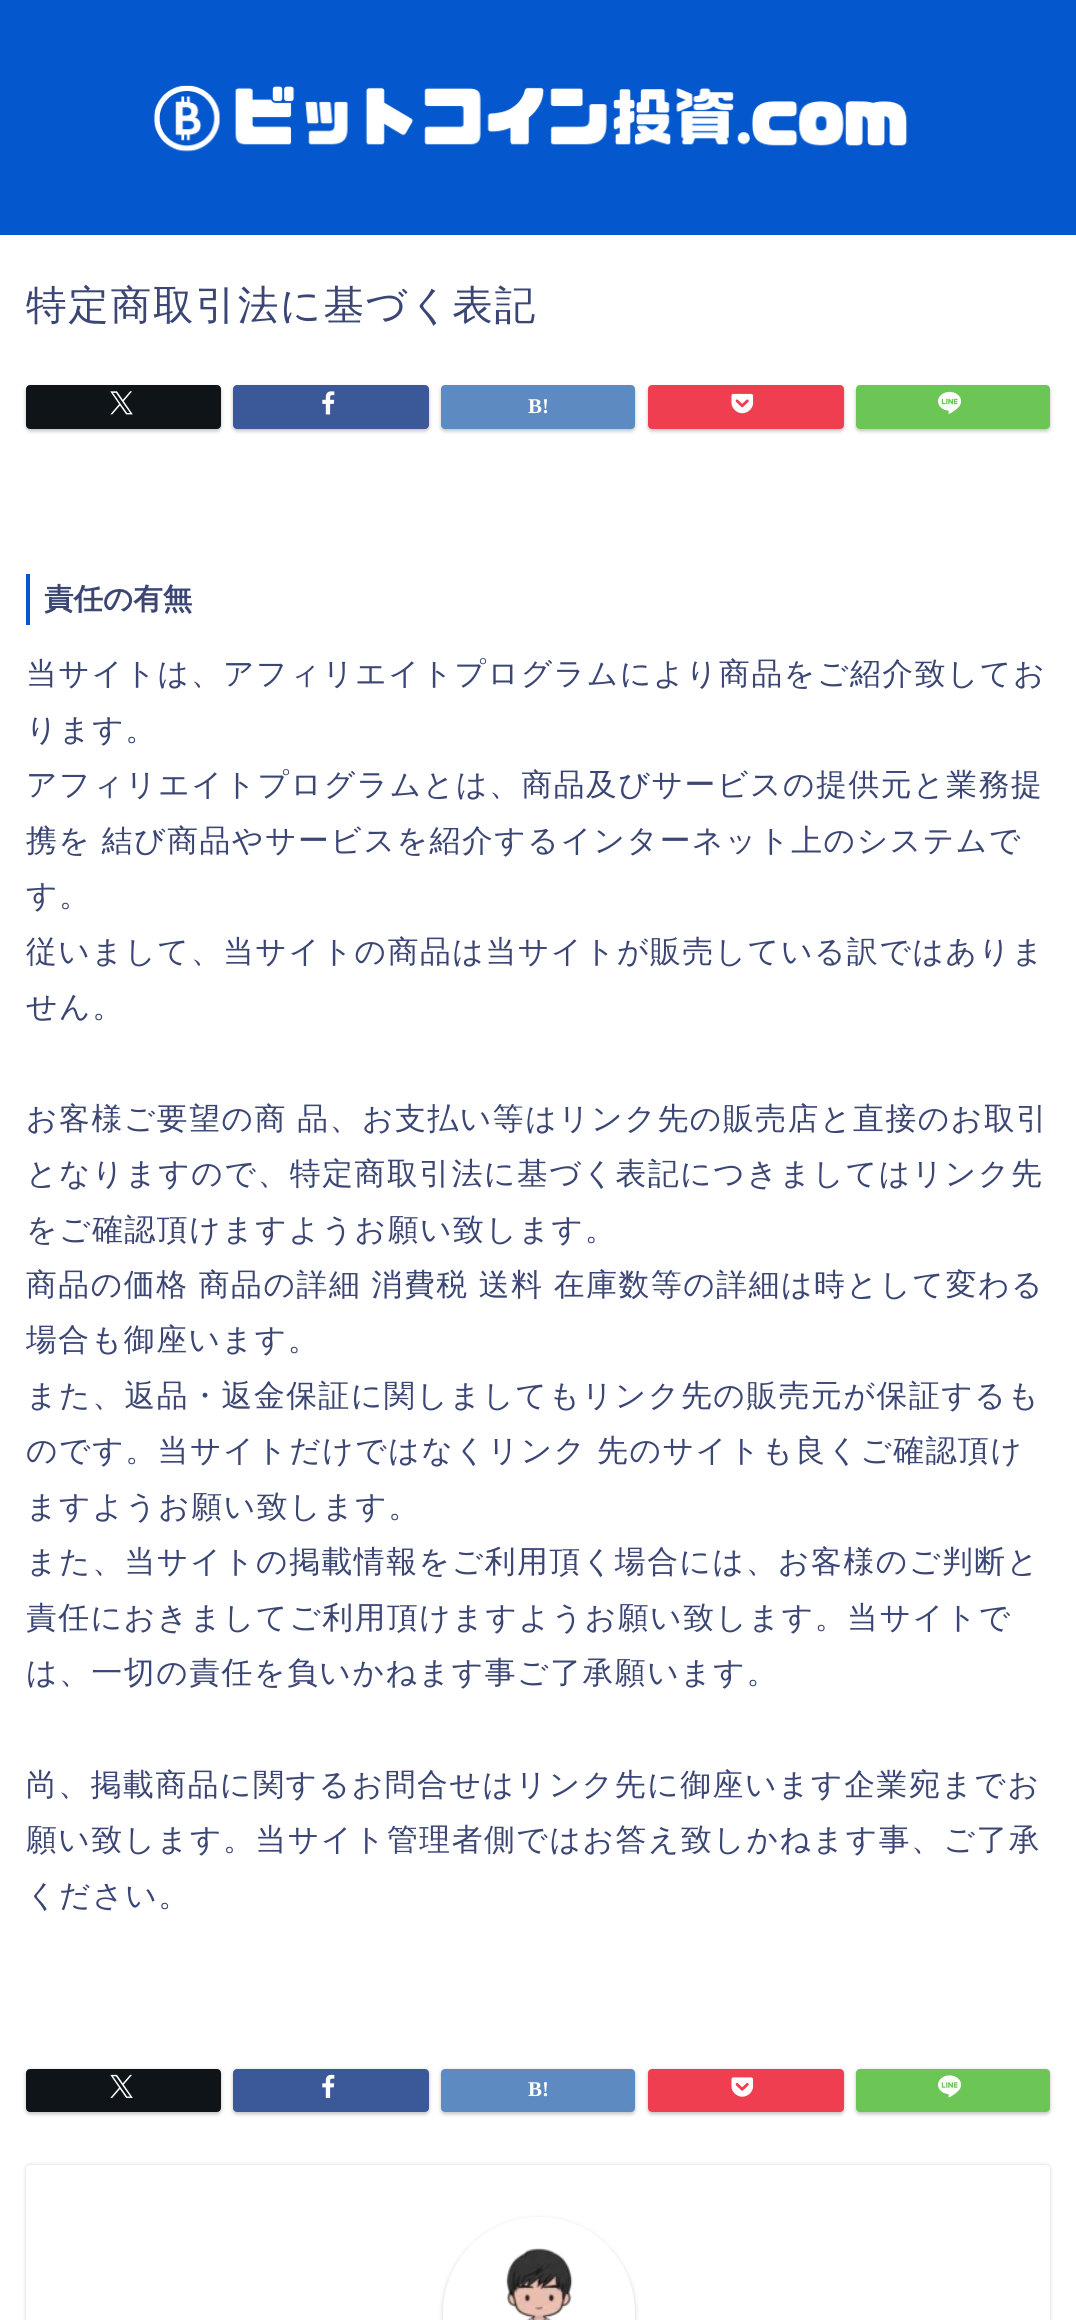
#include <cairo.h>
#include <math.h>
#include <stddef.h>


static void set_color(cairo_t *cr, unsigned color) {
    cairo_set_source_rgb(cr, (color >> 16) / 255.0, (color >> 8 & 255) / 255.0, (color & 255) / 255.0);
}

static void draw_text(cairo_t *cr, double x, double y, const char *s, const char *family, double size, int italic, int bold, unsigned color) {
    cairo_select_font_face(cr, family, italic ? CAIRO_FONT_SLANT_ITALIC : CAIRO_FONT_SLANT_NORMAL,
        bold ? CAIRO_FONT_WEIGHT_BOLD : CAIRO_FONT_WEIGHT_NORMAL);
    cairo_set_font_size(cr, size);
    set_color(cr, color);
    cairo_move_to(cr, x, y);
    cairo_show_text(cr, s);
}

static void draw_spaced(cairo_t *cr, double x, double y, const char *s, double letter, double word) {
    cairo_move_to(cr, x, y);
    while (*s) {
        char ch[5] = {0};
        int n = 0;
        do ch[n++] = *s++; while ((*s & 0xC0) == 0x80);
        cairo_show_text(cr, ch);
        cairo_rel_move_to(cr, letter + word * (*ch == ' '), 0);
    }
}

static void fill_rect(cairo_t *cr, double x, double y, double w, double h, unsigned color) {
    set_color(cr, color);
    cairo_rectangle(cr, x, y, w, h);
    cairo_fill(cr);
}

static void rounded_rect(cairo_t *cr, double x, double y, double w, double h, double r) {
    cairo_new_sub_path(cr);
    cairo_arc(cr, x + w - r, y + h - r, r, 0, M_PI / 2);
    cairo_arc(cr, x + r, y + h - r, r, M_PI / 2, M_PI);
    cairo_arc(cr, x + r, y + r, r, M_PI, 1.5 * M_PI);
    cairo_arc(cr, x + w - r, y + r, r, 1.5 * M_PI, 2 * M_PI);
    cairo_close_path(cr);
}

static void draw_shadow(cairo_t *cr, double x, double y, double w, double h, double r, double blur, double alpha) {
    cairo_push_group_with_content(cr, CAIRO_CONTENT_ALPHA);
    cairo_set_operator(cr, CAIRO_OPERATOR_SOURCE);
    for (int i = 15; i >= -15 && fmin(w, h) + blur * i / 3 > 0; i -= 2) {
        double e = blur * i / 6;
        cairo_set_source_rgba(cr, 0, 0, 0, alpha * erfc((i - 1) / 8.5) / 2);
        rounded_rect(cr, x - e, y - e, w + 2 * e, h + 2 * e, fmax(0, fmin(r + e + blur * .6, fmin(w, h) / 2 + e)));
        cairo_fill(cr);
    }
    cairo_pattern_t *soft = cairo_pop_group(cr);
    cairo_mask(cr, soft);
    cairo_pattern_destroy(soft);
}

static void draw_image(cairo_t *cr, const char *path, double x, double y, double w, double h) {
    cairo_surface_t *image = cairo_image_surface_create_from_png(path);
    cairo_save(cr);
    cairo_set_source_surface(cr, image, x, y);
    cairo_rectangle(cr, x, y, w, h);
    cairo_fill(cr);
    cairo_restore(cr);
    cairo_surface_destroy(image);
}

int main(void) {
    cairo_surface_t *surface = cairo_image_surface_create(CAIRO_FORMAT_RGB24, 1076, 2320);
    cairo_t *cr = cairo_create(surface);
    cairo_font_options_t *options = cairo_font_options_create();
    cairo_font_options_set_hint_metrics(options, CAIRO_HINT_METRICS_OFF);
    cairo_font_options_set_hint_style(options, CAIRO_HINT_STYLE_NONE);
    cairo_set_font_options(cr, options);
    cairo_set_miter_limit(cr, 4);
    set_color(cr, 0xFFFFFF);
    cairo_paint(cr);
    fill_rect(cr, 0, 0, 1076, 235, 0x0457CC);
    draw_image(cr, "assets/img1.png", 153, 85, 755, 67);
    cairo_select_font_face(cr, "WenQuanYi Zen Hei Medium", CAIRO_FONT_SLANT_NORMAL, CAIRO_FONT_WEIGHT_NORMAL);
    cairo_set_font_size(cr, 40.6);
    set_color(cr, 0x3B4675);
    draw_spaced(cr, 26, 319, "特定商取引法に基づく表記", 1.75, 0);
    set_color(cr, 0x000000);
    draw_shadow(cr, 26, 387, 195, 44, 4, 2, 0.25);
    set_color(cr, 0x0F1419);
    rounded_rect(cr, 28, 387, 191, 40, 2);
    cairo_fill_preserve(cr);
    cairo_set_line_width(cr, 4);
    cairo_stroke(cr);
    draw_image(cr, "assets/img2.png", 110, 391, 23, 24);
    set_color(cr, 0x000000);
    draw_shadow(cr, 233, 387, 196, 44, 4, 2, 0.25);
    set_color(cr, 0x3B5998);
    rounded_rect(cr, 235, 387, 192, 40, 2);
    cairo_fill_preserve(cr);
    cairo_stroke(cr);
    draw_image(cr, "assets/img3.png", 322, 391, 13, 24);
    set_color(cr, 0x000000);
    draw_shadow(cr, 441, 387, 194, 44, 4, 2, 0.25);
    set_color(cr, 0x5D8AC1);
    rounded_rect(cr, 443, 387, 190, 40, 2);
    cairo_fill_preserve(cr);
    cairo_stroke(cr);
    draw_text(cr, 528, 413, "B!", "Liberation Serif", 21, 0, 1, 0xFFFFFF);
    set_color(cr, 0x000000);
    draw_shadow(cr, 648, 387, 196, 44, 4, 2, 0.25);
    set_color(cr, 0xF03E51);
    rounded_rect(cr, 650, 387, 192, 40, 2);
    cairo_fill_preserve(cr);
    cairo_stroke(cr);
    draw_image(cr, "assets/img4.png", 731, 393, 23, 21);
    set_color(cr, 0x000000);
    draw_shadow(cr, 856, 387, 194, 44, 4, 2, 0.25);
    set_color(cr, 0x6CC655);
    rounded_rect(cr, 858, 387, 190, 40, 2);
    cairo_fill_preserve(cr);
    cairo_stroke(cr);
    draw_image(cr, "assets/img5.png", 938, 391, 24, 23);
    fill_rect(cr, 26, 574, 4, 51, 0x0457CC);
    draw_text(cr, 44, 609, "責任の有無", "WenQuanYi Zen Hei", 29.5, 0, 1, 0x3B4675);
    cairo_select_font_face(cr, "WenQuanYi Zen Hei Medium", CAIRO_FONT_SLANT_NORMAL, CAIRO_FONT_WEIGHT_NORMAL);
    cairo_set_font_size(cr, 30.8);
    draw_spaced(cr, 26, 684, "当サイトは、アフィリエイトプログラムにより商品をご紹介致してお", 1.55, 0);
    draw_spaced(cr, 26, 740, "ります。", 1.55, 0);
    draw_spaced(cr, 26, 795, "アフィリエイトプログラムとは、商品及びサービスの提供元と業務提", 1.55, 0);
    draw_spaced(cr, 26, 851, "携を 結び商品やサービスを紹介するインターネット上のシステムで", 1.55, -0.5);
    draw_spaced(cr, 26, 906, "す。", 1.55, 0);
    draw_spaced(cr, 26, 962, "従いまして、当サイトの商品は当サイトが販売している訳ではありま", 1.55, 0);
    draw_spaced(cr, 26, 1017, "せん。", 1.55, 0);
    draw_spaced(cr, 26, 1129, "お客様ご要望の商 品、お支払い等はリンク先の販売店と直接のお取引", 1.55, -0.5);
    draw_spaced(cr, 26, 1184, "となりますので、特定商取引法に基づく表記につきましてはリンク先", 1.55, 0);
    draw_spaced(cr, 26, 1240, "をご確認頂けますようお願い致します。", 1.55, 0);
    draw_spaced(cr, 26, 1295, "商品の価格 商品の詳細 消費税 送料 在庫数等の詳細は時として変わる", 1.55, -0.5);
    draw_spaced(cr, 26, 1350, "場合も御座います。", 1.55, 0);
    draw_spaced(cr, 26, 1406, "また、返品・返金保証に関しましてもリンク先の販売元が保証するも", 1.55, 0);
    draw_spaced(cr, 26, 1461, "のです。当サイトだけではなくリンク 先のサイトも良くご確認頂け", 1.55, -0.5);
    draw_spaced(cr, 26, 1517, "ますようお願い致します。", 1.55, 0);
    draw_spaced(cr, 26, 1572, "また、当サイトの掲載情報をご利用頂く場合には、お客様のご判断と", 1.55, 0);
    draw_spaced(cr, 26, 1628, "責任におきましてご利用頂けますようお願い致します。当サイトで", 1.55, 0);
    draw_spaced(cr, 26, 1683, "は、一切の責任を負いかねます事ご了承願います。", 1.55, 0);
    draw_spaced(cr, 26, 1795, "尚、掲載商品に関するお問合せはリンク先に御座います企業宛までお", 1.55, 0);
    draw_spaced(cr, 26, 1850, "願い致します。当サイト管理者側ではお答え致しかねます事、ご了承", 1.55, 0);
    draw_spaced(cr, 26, 1906, "ください。", 1.55, 0);
    set_color(cr, 0x000000);
    draw_shadow(cr, 26, 2070, 195, 44, 4, 2, 0.25);
    set_color(cr, 0x0F1419);
    rounded_rect(cr, 28, 2071, 191, 39, 2);
    cairo_fill_preserve(cr);
    cairo_stroke(cr);
    draw_image(cr, "assets/img6.png", 110, 2074, 23, 24);
    set_color(cr, 0x000000);
    draw_shadow(cr, 233, 2070, 196, 44, 4, 2, 0.25);
    set_color(cr, 0x3B5998);
    rounded_rect(cr, 235, 2071, 192, 39, 2);
    cairo_fill_preserve(cr);
    cairo_stroke(cr);
    draw_image(cr, "assets/img7.png", 322, 2074, 13, 24);
    set_color(cr, 0x000000);
    draw_shadow(cr, 441, 2070, 194, 44, 4, 2, 0.25);
    set_color(cr, 0x5D8AC1);
    rounded_rect(cr, 443, 2071, 190, 39, 2);
    cairo_fill_preserve(cr);
    cairo_stroke(cr);
    draw_text(cr, 528, 2096, "B!", "Liberation Serif", 21, 0, 1, 0xFFFFFF);
    set_color(cr, 0x000000);
    draw_shadow(cr, 648, 2070, 196, 44, 4, 2, 0.25);
    set_color(cr, 0xF03E51);
    rounded_rect(cr, 650, 2071, 192, 39, 2);
    cairo_fill_preserve(cr);
    cairo_stroke(cr);
    draw_image(cr, "assets/img8.png", 731, 2077, 23, 20);
    set_color(cr, 0x000000);
    draw_shadow(cr, 856, 2070, 194, 44, 4, 2, 0.25);
    set_color(cr, 0x6CC655);
    rounded_rect(cr, 858, 2071, 190, 39, 2);
    cairo_fill_preserve(cr);
    cairo_stroke(cr);
    draw_image(cr, "assets/img9.png", 938, 2075, 24, 23);
    set_color(cr, 0x000000);
    draw_shadow(cr, 26, 2165, 1024, 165, 4, 2, 0.18);
    set_color(cr, 0xFFFFFF);
    rounded_rect(cr, 26, 2165, 1024, 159, 4);
    cairo_fill(cr);
    set_color(cr, 0x000000);
    draw_shadow(cr, 443, 2219, 192, 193, 96, 2.5, 0.18);
    set_color(cr, 0xFFFFFF);
    rounded_rect(cr, 443, 2217, 192, 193, 96);
    cairo_fill(cr);
    draw_image(cr, "assets/img10.png", 506, 2248, 67, 72);
    cairo_surface_write_to_png(surface, "output.png");
    cairo_font_options_destroy(options);
    cairo_destroy(cr);
    cairo_surface_destroy(surface);
    return 0;
}
